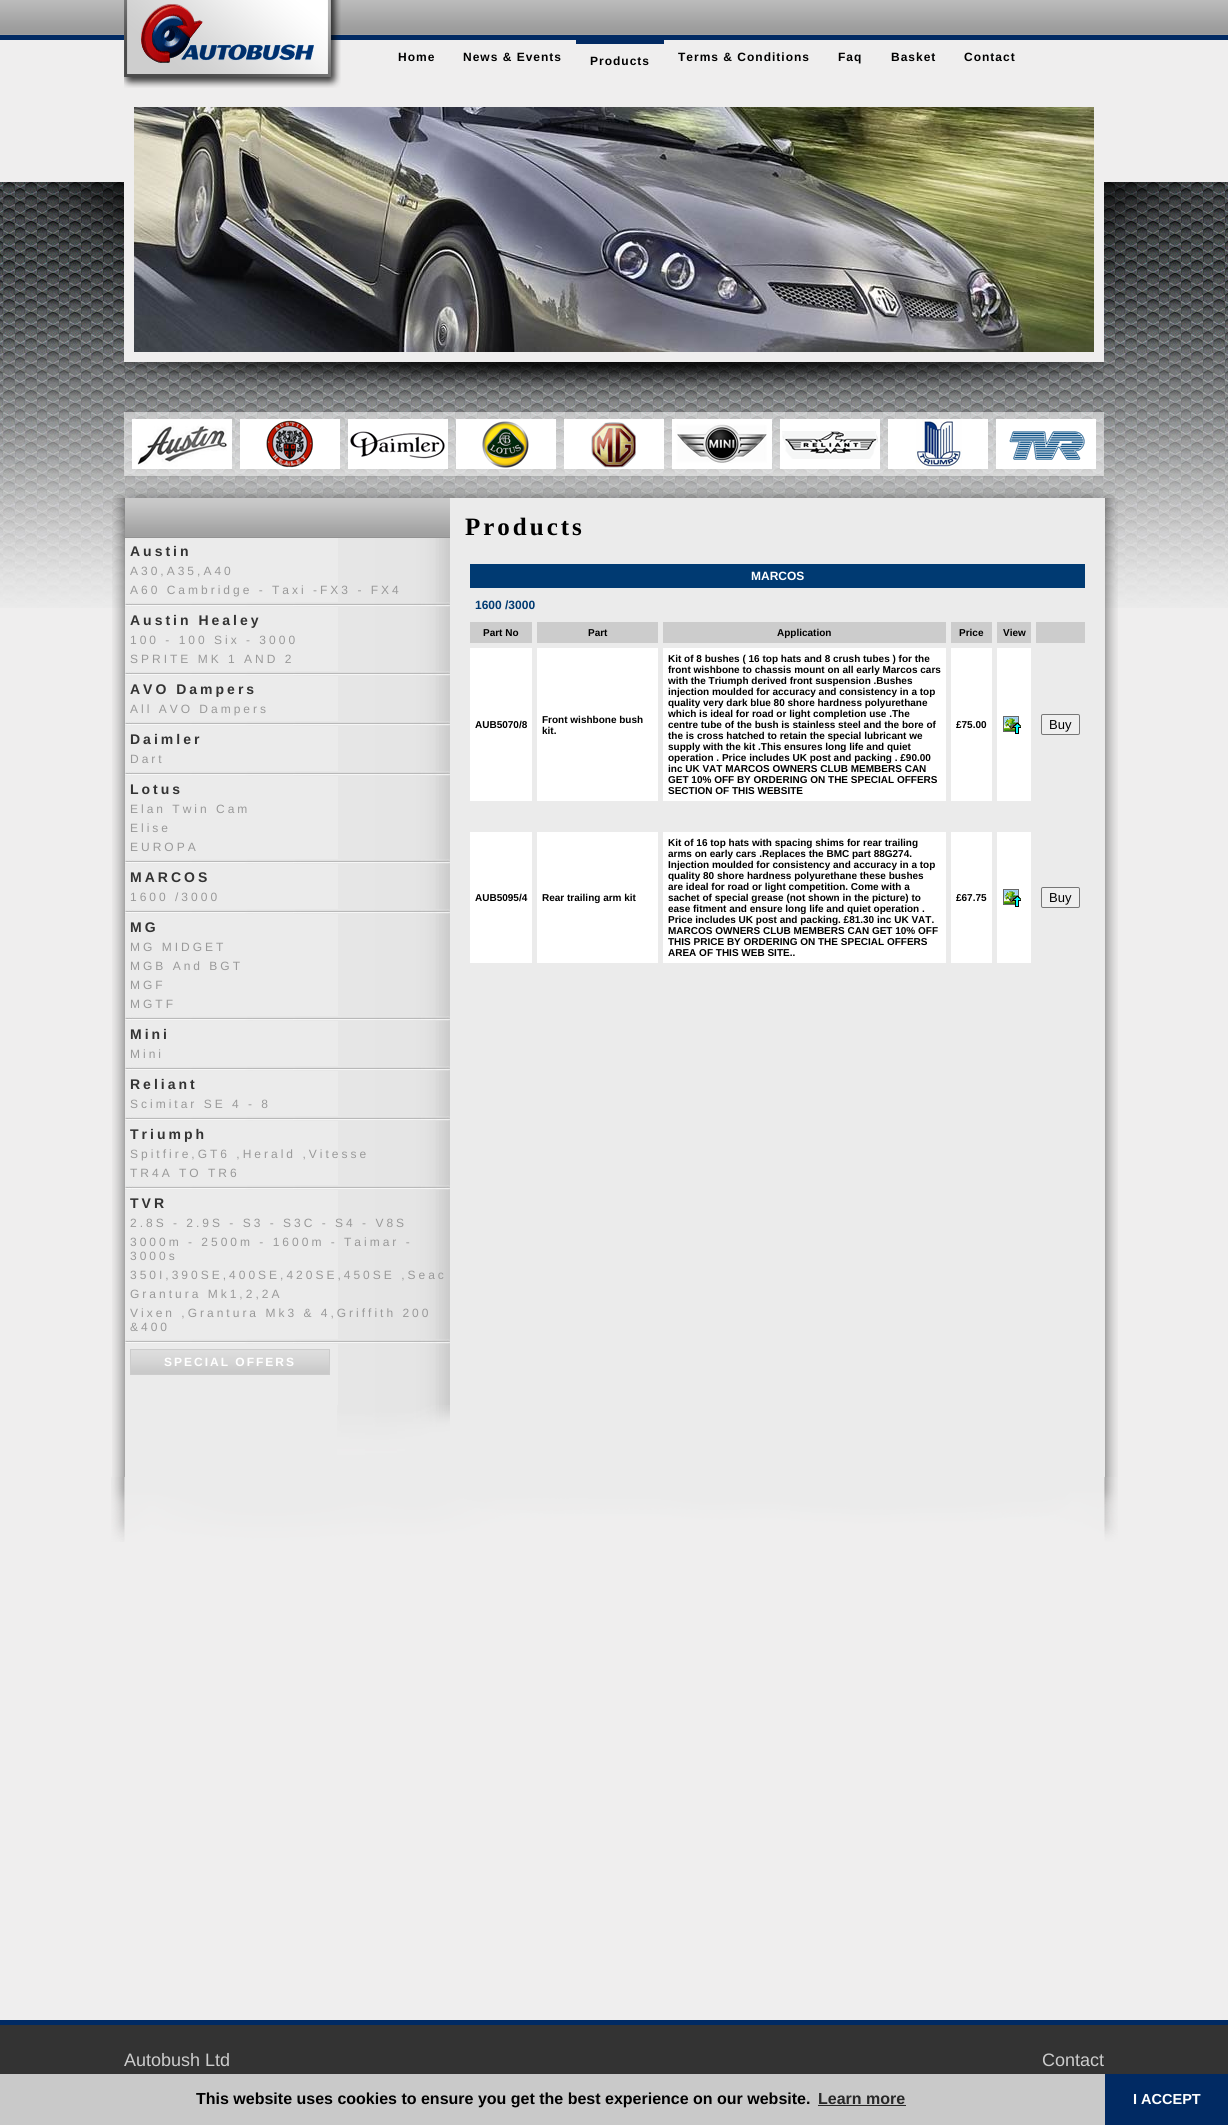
#include <cairo.h>
#include <math.h>
#include <stddef.h>


static void set_color(cairo_t *cr, unsigned color) {
    cairo_set_source_rgb(cr, (color >> 16) / 255.0, (color >> 8 & 255) / 255.0, (color & 255) / 255.0);
}

static void draw_text(cairo_t *cr, double x, double y, const char *s, const char *family, double size, int italic, int bold, unsigned color) {
    cairo_select_font_face(cr, family, italic ? CAIRO_FONT_SLANT_ITALIC : CAIRO_FONT_SLANT_NORMAL,
        bold ? CAIRO_FONT_WEIGHT_BOLD : CAIRO_FONT_WEIGHT_NORMAL);
    cairo_set_font_size(cr, size);
    set_color(cr, color);
    cairo_move_to(cr, x, y);
    cairo_show_text(cr, s);
}

static void draw_spaced(cairo_t *cr, double x, double y, const char *s, double letter, double word) {
    cairo_move_to(cr, x, y);
    while (*s) {
        char ch[5] = {0};
        int n = 0;
        do ch[n++] = *s++; while ((*s & 0xC0) == 0x80);
        cairo_show_text(cr, ch);
        cairo_rel_move_to(cr, letter + word * (*ch == ' '), 0);
    }
}

static void fill_rect(cairo_t *cr, double x, double y, double w, double h, unsigned color) {
    set_color(cr, color);
    cairo_rectangle(cr, x, y, w, h);
    cairo_fill(cr);
}

static void rounded_rect(cairo_t *cr, double x, double y, double w, double h, double r) {
    cairo_new_sub_path(cr);
    cairo_arc(cr, x + w - r, y + h - r, r, 0, M_PI / 2);
    cairo_arc(cr, x + r, y + h - r, r, M_PI / 2, M_PI);
    cairo_arc(cr, x + r, y + r, r, M_PI, 1.5 * M_PI);
    cairo_arc(cr, x + w - r, y + r, r, 1.5 * M_PI, 2 * M_PI);
    cairo_close_path(cr);
}

static void draw_image(cairo_t *cr, const char *path, double x, double y, double w, double h) {
    cairo_surface_t *image = cairo_image_surface_create_from_png(path);
    cairo_save(cr);
    cairo_set_source_surface(cr, image, x, y);
    cairo_rectangle(cr, x, y, w, h);
    cairo_fill(cr);
    cairo_restore(cr);
    cairo_surface_destroy(image);
}

int main(void) {
    cairo_surface_t *surface = cairo_image_surface_create(CAIRO_FORMAT_RGB24, 1228, 2125);
    cairo_t *cr = cairo_create(surface);
    cairo_font_options_t *options = cairo_font_options_create();
    cairo_font_options_set_hint_metrics(options, CAIRO_HINT_METRICS_OFF);
    cairo_font_options_set_hint_style(options, CAIRO_HINT_STYLE_NONE);
    cairo_set_font_options(cr, options);
    cairo_set_miter_limit(cr, 4);
    set_color(cr, 0xEFEEEE);
    cairo_paint(cr);
    draw_image(cr, "assets/img1.png", 0, 182, 1228, 426);
    draw_image(cr, "assets/img2.png", 0, 0, 1228, 35);
    fill_rect(cr, 0, 35, 1228, 5, 0x012A63);
    draw_image(cr, "assets/img3.png", 124, 0, 217, 88);
    cairo_select_font_face(cr, "Liberation Sans", CAIRO_FONT_SLANT_NORMAL, CAIRO_FONT_WEIGHT_BOLD);
    cairo_set_font_size(cr, 12);
    set_color(cr, 0x000000);
    draw_spaced(cr, 398, 61, "Home", 1, 0);
    draw_spaced(cr, 463, 61, "News & Events", 1, 0);
    fill_rect(cr, 576, 40, 88, 4, 0x012A63);
    set_color(cr, 0x000000);
    draw_spaced(cr, 590, 65, "Products", 1, 0);
    draw_spaced(cr, 678, 61, "Terms & Conditions", 1, 0);
    draw_spaced(cr, 838, 61, "Faq", 1, 0);
    draw_spaced(cr, 891, 61, "Basket", 1, 0);
    draw_spaced(cr, 964, 61, "Contact", 1, 0);
    draw_image(cr, "assets/img4.png", 0, 182, 124, 156);
    cairo_rectangle(cr, 129, 102, 970, 255);
    set_color(cr, 0xEFEEEE);
    cairo_set_line_width(cr, 10);
    cairo_stroke(cr);
    draw_image(cr, "assets/img5.png", 134, 107, 960, 245);
    draw_image(cr, "assets/img6.png", 1104, 182, 124, 157);
    draw_image(cr, "assets/img7.png", 124, 362, 980, 37);
    cairo_set_source_rgba(cr, 1, 1, 1, 0.5);
    cairo_rectangle(cr, 124, 412, 980, 64);
    cairo_fill(cr);
    draw_image(cr, "assets/img8.png", 132, 419, 100, 50);
    draw_image(cr, "assets/img9.png", 240, 419, 100, 50);
    draw_image(cr, "assets/img10.png", 348, 419, 100, 50);
    draw_image(cr, "assets/img11.png", 456, 419, 100, 50);
    draw_image(cr, "assets/img12.png", 564, 419, 100, 50);
    draw_image(cr, "assets/img13.png", 672, 419, 100, 50);
    draw_image(cr, "assets/img14.png", 780, 419, 100, 50);
    draw_image(cr, "assets/img15.png", 888, 419, 100, 50);
    draw_image(cr, "assets/img16.png", 996, 419, 100, 50);
    draw_image(cr, "assets/img17.png", 115, 488, 1000, 10);
    draw_image(cr, "assets/img18.png", 112, 498, 1006, 979);
    draw_image(cr, "assets/img19.png", 338, 538, 112, 867);
    draw_image(cr, "assets/img20.png", 125, 498, 325, 40);
    cairo_set_font_size(cr, 14);
    set_color(cr, 0x333333);
    draw_spaced(cr, 130, 556, "Austin", 3, 0);
    cairo_select_font_face(cr, "Liberation Sans", CAIRO_FONT_SLANT_NORMAL, CAIRO_FONT_WEIGHT_NORMAL);
    cairo_set_font_size(cr, 12);
    set_color(cr, 0x999999);
    draw_spaced(cr, 130, 575, "A30,A35,A40", 3, 0);
    draw_spaced(cr, 130, 594, "A60 Cambridge - Taxi -FX3 - FX4", 3, 0);
    draw_image(cr, "assets/img21.png", 125, 602, 325, 5);
    cairo_select_font_face(cr, "Liberation Sans", CAIRO_FONT_SLANT_NORMAL, CAIRO_FONT_WEIGHT_BOLD);
    cairo_set_font_size(cr, 14);
    set_color(cr, 0x333333);
    draw_spaced(cr, 130, 625, "Austin Healey", 3, 0);
    cairo_select_font_face(cr, "Liberation Sans", CAIRO_FONT_SLANT_NORMAL, CAIRO_FONT_WEIGHT_NORMAL);
    cairo_set_font_size(cr, 12);
    set_color(cr, 0x999999);
    draw_spaced(cr, 130, 644, "100 - 100 Six - 3000", 3, 0);
    draw_spaced(cr, 130, 663, "SPRITE MK 1 AND 2", 3, 0);
    draw_image(cr, "assets/img21.png", 125, 671, 325, 5);
    cairo_select_font_face(cr, "Liberation Sans", CAIRO_FONT_SLANT_NORMAL, CAIRO_FONT_WEIGHT_BOLD);
    cairo_set_font_size(cr, 14);
    set_color(cr, 0x333333);
    draw_spaced(cr, 130, 694, "AVO Dampers", 3, 0);
    cairo_select_font_face(cr, "Liberation Sans", CAIRO_FONT_SLANT_NORMAL, CAIRO_FONT_WEIGHT_NORMAL);
    cairo_set_font_size(cr, 12);
    set_color(cr, 0x999999);
    draw_spaced(cr, 130, 713, "All AVO Dampers", 3, 0);
    draw_image(cr, "assets/img21.png", 125, 721, 325, 5);
    cairo_select_font_face(cr, "Liberation Sans", CAIRO_FONT_SLANT_NORMAL, CAIRO_FONT_WEIGHT_BOLD);
    cairo_set_font_size(cr, 14);
    set_color(cr, 0x333333);
    draw_spaced(cr, 130, 744, "Daimler", 3, 0);
    cairo_select_font_face(cr, "Liberation Sans", CAIRO_FONT_SLANT_NORMAL, CAIRO_FONT_WEIGHT_NORMAL);
    cairo_set_font_size(cr, 12);
    set_color(cr, 0x999999);
    draw_spaced(cr, 130, 763, "Dart", 3, 0);
    draw_image(cr, "assets/img21.png", 125, 771, 325, 5);
    cairo_select_font_face(cr, "Liberation Sans", CAIRO_FONT_SLANT_NORMAL, CAIRO_FONT_WEIGHT_BOLD);
    cairo_set_font_size(cr, 14);
    set_color(cr, 0x333333);
    draw_spaced(cr, 130, 794, "Lotus", 3, 0);
    cairo_select_font_face(cr, "Liberation Sans", CAIRO_FONT_SLANT_NORMAL, CAIRO_FONT_WEIGHT_NORMAL);
    cairo_set_font_size(cr, 12);
    set_color(cr, 0x999999);
    draw_spaced(cr, 130, 813, "Elan Twin Cam", 3, 0);
    draw_spaced(cr, 130, 832, "Elise", 3, 0);
    draw_spaced(cr, 130, 851, "EUROPA", 3, 0);
    draw_image(cr, "assets/img21.png", 125, 859, 325, 5);
    cairo_select_font_face(cr, "Liberation Sans", CAIRO_FONT_SLANT_NORMAL, CAIRO_FONT_WEIGHT_BOLD);
    cairo_set_font_size(cr, 14);
    set_color(cr, 0x333333);
    draw_spaced(cr, 130, 882, "MARCOS", 3, 0);
    cairo_select_font_face(cr, "Liberation Sans", CAIRO_FONT_SLANT_NORMAL, CAIRO_FONT_WEIGHT_NORMAL);
    cairo_set_font_size(cr, 12);
    set_color(cr, 0x999999);
    draw_spaced(cr, 130, 901, "1600 /3000", 3, 0);
    draw_image(cr, "assets/img21.png", 125, 909, 325, 5);
    cairo_select_font_face(cr, "Liberation Sans", CAIRO_FONT_SLANT_NORMAL, CAIRO_FONT_WEIGHT_BOLD);
    cairo_set_font_size(cr, 14);
    set_color(cr, 0x333333);
    draw_spaced(cr, 130, 932, "MG", 3, 0);
    cairo_select_font_face(cr, "Liberation Sans", CAIRO_FONT_SLANT_NORMAL, CAIRO_FONT_WEIGHT_NORMAL);
    cairo_set_font_size(cr, 12);
    set_color(cr, 0x999999);
    draw_spaced(cr, 130, 951, "MG MIDGET", 3, 0);
    draw_spaced(cr, 130, 970, "MGB And BGT", 3, 0);
    draw_spaced(cr, 130, 989, "MGF", 3, 0);
    draw_spaced(cr, 130, 1008, "MGTF", 3, 0);
    draw_image(cr, "assets/img21.png", 125, 1016, 325, 5);
    cairo_select_font_face(cr, "Liberation Sans", CAIRO_FONT_SLANT_NORMAL, CAIRO_FONT_WEIGHT_BOLD);
    cairo_set_font_size(cr, 14);
    set_color(cr, 0x333333);
    draw_spaced(cr, 130, 1039, "Mini", 3, 0);
    cairo_select_font_face(cr, "Liberation Sans", CAIRO_FONT_SLANT_NORMAL, CAIRO_FONT_WEIGHT_NORMAL);
    cairo_set_font_size(cr, 12);
    set_color(cr, 0x999999);
    draw_spaced(cr, 130, 1058, "Mini", 3, 0);
    draw_image(cr, "assets/img21.png", 125, 1066, 325, 5);
    cairo_select_font_face(cr, "Liberation Sans", CAIRO_FONT_SLANT_NORMAL, CAIRO_FONT_WEIGHT_BOLD);
    cairo_set_font_size(cr, 14);
    set_color(cr, 0x333333);
    draw_spaced(cr, 130, 1089, "Reliant", 3, 0);
    cairo_select_font_face(cr, "Liberation Sans", CAIRO_FONT_SLANT_NORMAL, CAIRO_FONT_WEIGHT_NORMAL);
    cairo_set_font_size(cr, 12);
    set_color(cr, 0x999999);
    draw_spaced(cr, 130, 1108, "Scimitar SE 4 - 8", 3, 0);
    draw_image(cr, "assets/img21.png", 125, 1116, 325, 5);
    cairo_select_font_face(cr, "Liberation Sans", CAIRO_FONT_SLANT_NORMAL, CAIRO_FONT_WEIGHT_BOLD);
    cairo_set_font_size(cr, 14);
    set_color(cr, 0x333333);
    draw_spaced(cr, 130, 1139, "Triumph", 3, 0);
    cairo_select_font_face(cr, "Liberation Sans", CAIRO_FONT_SLANT_NORMAL, CAIRO_FONT_WEIGHT_NORMAL);
    cairo_set_font_size(cr, 12);
    set_color(cr, 0x999999);
    draw_spaced(cr, 130, 1158, "Spitfire,GT6 ,Herald ,Vitesse", 3, 0);
    draw_spaced(cr, 130, 1177, "TR4A TO TR6", 3, 0);
    draw_image(cr, "assets/img21.png", 125, 1185, 325, 5);
    cairo_select_font_face(cr, "Liberation Sans", CAIRO_FONT_SLANT_NORMAL, CAIRO_FONT_WEIGHT_BOLD);
    cairo_set_font_size(cr, 14);
    set_color(cr, 0x333333);
    draw_spaced(cr, 130, 1208, "TVR", 3, 0);
    cairo_select_font_face(cr, "Liberation Sans", CAIRO_FONT_SLANT_NORMAL, CAIRO_FONT_WEIGHT_NORMAL);
    cairo_set_font_size(cr, 12);
    set_color(cr, 0x999999);
    draw_spaced(cr, 130, 1227, "2.8S - 2.9S - S3 - S3C - S4 - V8S", 3, 0);
    draw_spaced(cr, 130, 1246, "3000m - 2500m - 1600m - Taimar -", 3, 0);
    draw_spaced(cr, 130, 1260, "3000s", 3, 0);
    draw_spaced(cr, 130, 1279, "350I,390SE,400SE,420SE,450SE ,Seac", 3, 0);
    draw_spaced(cr, 130, 1298, "Grantura Mk1,2,2A", 3, 0);
    draw_spaced(cr, 130, 1317, "Vixen ,Grantura Mk3 & 4,Griffith 200", 3, 0);
    draw_spaced(cr, 130, 1331, "&400", 3, 0);
    draw_image(cr, "assets/img21.png", 125, 1339, 325, 5);
    draw_image(cr, "assets/img22.png", 131, 1350, 198, 24);
    cairo_rectangle(cr, 130.5, 1349.5, 199, 25);
    set_color(cr, 0xCCCCCC);
    cairo_set_line_width(cr, 1);
    cairo_stroke(cr);
    cairo_select_font_face(cr, "Liberation Sans", CAIRO_FONT_SLANT_NORMAL, CAIRO_FONT_WEIGHT_BOLD);
    set_color(cr, 0xFFFFFF);
    draw_spaced(cr, 164, 1366, "SPECIAL OFFERS", 2, 0);
    draw_image(cr, "assets/img23.png", 337, 1405, 113, 72);
    cairo_select_font_face(cr, "Liberation Serif", CAIRO_FONT_SLANT_NORMAL, CAIRO_FONT_WEIGHT_BOLD);
    cairo_set_font_size(cr, 25);
    set_color(cr, 0x000000);
    draw_spaced(cr, 465, 535, "Products", 3, 0);
    fill_rect(cr, 470, 564, 615, 24, 0x003A72);
    draw_text(cr, 751, 580, "MARCOS", "Liberation Sans", 12, 0, 1, 0xFFFFFF);
    draw_text(cr, 475, 609, "1600 /3000", "Liberation Sans", 12, 0, 1, 0x003A72);
    fill_rect(cr, 470, 622, 62, 21, 0xCCCCCC);
    draw_text(cr, 483, 636, "Part No", "Liberation Sans", 10, 0, 1, 0x000000);
    fill_rect(cr, 537, 622, 121, 21, 0xCCCCCC);
    draw_text(cr, 588, 636, "Part", "Liberation Sans", 10, 0, 1, 0x000000);
    fill_rect(cr, 663, 622, 283, 21, 0xCCCCCC);
    draw_text(cr, 777, 636, "Application", "Liberation Sans", 10, 0, 1, 0x000000);
    fill_rect(cr, 951, 622, 41, 21, 0xCCCCCC);
    draw_text(cr, 959, 636, "Price", "Liberation Sans", 10, 0, 1, 0x000000);
    fill_rect(cr, 997, 622, 34, 21, 0xCCCCCC);
    draw_text(cr, 1003, 636, "View", "Liberation Sans", 10, 0, 1, 0x000000);
    fill_rect(cr, 1036, 622, 49, 21, 0xCCCCCC);
    fill_rect(cr, 470, 648, 62, 153, 0xFFFFFF);
    draw_text(cr, 475, 728, "AUB5070/8", "Liberation Sans", 10, 0, 1, 0x000000);
    fill_rect(cr, 537, 648, 121, 153, 0xFFFFFF);
    draw_text(cr, 542, 723, "Front wishbone bush", "Liberation Sans", 10, 0, 1, 0x000000);
    draw_text(cr, 542, 734, "kit.", "Liberation Sans", 10, 0, 1, 0x000000);
    fill_rect(cr, 663, 648, 283, 153, 0xFFFFFF);
    draw_text(cr, 668, 662, "Kit of 8 bushes ( 16 top hats and 8 crush tubes ) for the", "Liberation Sans", 10, 0, 1, 0x000000);
    draw_text(cr, 668, 673, "front wishbone to chassis mount on all early Marcos cars", "Liberation Sans", 10, 0, 1, 0x000000);
    draw_text(cr, 668, 684, "with the Triumph derived front suspension .Bushes", "Liberation Sans", 10, 0, 1, 0x000000);
    draw_text(cr, 668, 695, "injection moulded for accuracy and consistency in a top", "Liberation Sans", 10, 0, 1, 0x000000);
    draw_text(cr, 668, 706, "quality very dark blue 80 shore hardness polyurethane", "Liberation Sans", 10, 0, 1, 0x000000);
    draw_text(cr, 668, 717, "which is ideal for road or light completion use .The", "Liberation Sans", 10, 0, 1, 0x000000);
    draw_text(cr, 668, 728, "centre tube of the bush is stainless steel and the bore of", "Liberation Sans", 10, 0, 1, 0x000000);
    draw_text(cr, 668, 739, "the is cross hatched to retain the special lubricant we", "Liberation Sans", 10, 0, 1, 0x000000);
    draw_text(cr, 668, 750, "supply with the kit .This ensures long life and quiet", "Liberation Sans", 10, 0, 1, 0x000000);
    draw_text(cr, 668, 761, "operation . Price includes UK post and packing . £90.00", "Liberation Sans", 10, 0, 1, 0x000000);
    draw_text(cr, 668, 772, "inc UK VAT MARCOS OWNERS CLUB MEMBERS CAN", "Liberation Sans", 10, 0, 1, 0x000000);
    draw_text(cr, 668, 783, "GET 10% OFF BY ORDERING ON THE SPECIAL OFFERS", "Liberation Sans", 10, 0, 1, 0x000000);
    draw_text(cr, 668, 794, "SECTION OF THIS WEBSITE", "Liberation Sans", 10, 0, 1, 0x000000);
    fill_rect(cr, 951, 648, 41, 153, 0xFFFFFF);
    draw_text(cr, 956, 728, "£75.00", "Liberation Sans", 10, 0, 1, 0x000000);
    fill_rect(cr, 997, 648, 34, 153, 0xFFFFFF);
    draw_image(cr, "assets/img24.png", 1003, 716, 18, 18);
    set_color(cr, 0xEFEFEF);
    rounded_rect(cr, 1041.5, 714.5, 38, 20, 1.5);
    cairo_fill_preserve(cr);
    set_color(cr, 0x767676);
    cairo_stroke(cr);
    draw_text(cr, 1049, 729, "Buy", "Liberation Sans", 13, 0, 0, 0x000000);
    fill_rect(cr, 470, 832, 62, 131, 0xFFFFFF);
    draw_text(cr, 475, 901, "AUB5095/4", "Liberation Sans", 10, 0, 1, 0x000000);
    fill_rect(cr, 537, 832, 121, 131, 0xFFFFFF);
    draw_text(cr, 542, 901, "Rear trailing arm kit", "Liberation Sans", 10, 0, 1, 0x000000);
    fill_rect(cr, 663, 832, 283, 131, 0xFFFFFF);
    draw_text(cr, 668, 846, "Kit of 16 top hats with spacing shims for rear trailing", "Liberation Sans", 10, 0, 1, 0x000000);
    draw_text(cr, 668, 857, "arms on early cars .Replaces the BMC part 88G274.", "Liberation Sans", 10, 0, 1, 0x000000);
    draw_text(cr, 668, 868, "Injection moulded for consistency and accuracy in a top", "Liberation Sans", 10, 0, 1, 0x000000);
    draw_text(cr, 668, 879, "quality 80 shore hardness polyurethane these bushes", "Liberation Sans", 10, 0, 1, 0x000000);
    draw_text(cr, 668, 890, "are ideal for road or light competition. Come with a", "Liberation Sans", 10, 0, 1, 0x000000);
    draw_text(cr, 668, 901, "sachet of special grease (not shown in the picture) to", "Liberation Sans", 10, 0, 1, 0x000000);
    draw_text(cr, 668, 912, "ease fitment and ensure long life and quiet operation .", "Liberation Sans", 10, 0, 1, 0x000000);
    draw_text(cr, 668, 923, "Price includes UK post and packing. £81.30 inc UK VAT.", "Liberation Sans", 10, 0, 1, 0x000000);
    draw_text(cr, 668, 934, "MARCOS OWNERS CLUB MEMBERS CAN GET 10% OFF", "Liberation Sans", 10, 0, 1, 0x000000);
    draw_text(cr, 668, 945, "THIS PRICE BY ORDERING ON THE SPECIAL OFFERS", "Liberation Sans", 10, 0, 1, 0x000000);
    draw_text(cr, 668, 956, "AREA OF THIS WEB SITE..", "Liberation Sans", 10, 0, 1, 0x000000);
    fill_rect(cr, 951, 832, 41, 131, 0xFFFFFF);
    draw_text(cr, 956, 901, "£67.75", "Liberation Sans", 10, 0, 1, 0x000000);
    fill_rect(cr, 997, 832, 34, 131, 0xFFFFFF);
    draw_image(cr, "assets/img24.png", 1003, 889, 18, 18);
    set_color(cr, 0xEFEFEF);
    rounded_rect(cr, 1041.5, 887.5, 38, 20, 1.5);
    cairo_fill_preserve(cr);
    set_color(cr, 0x767676);
    cairo_stroke(cr);
    draw_text(cr, 1049, 902, "Buy", "Liberation Sans", 13, 0, 0, 0x000000);
    draw_image(cr, "assets/img25.png", 111, 1477, 1007, 65);
    fill_rect(cr, 0, 2025, 1228, 49, 0x333333);
    fill_rect(cr, 0, 2020, 1228, 5, 0x012A63);
    draw_text(cr, 124, 2066, "Autobush Ltd", "Liberation Sans", 18, 0, 0, 0xCCCCCC);
    draw_text(cr, 1042, 2066, "Contact", "Liberation Sans", 18, 0, 0, 0xCCCCCC);
    fill_rect(cr, 0, 2074, 1105, 51, 0xC9C9C9);
    draw_text(cr, 196, 2104, "This website uses cookies to ensure you get the best experience on our website.", "Liberation Sans", 16, 0, 1, 0x000000);
    draw_text(cr, 818, 2104, "Learn more", "Liberation Sans", 16, 0, 1, 0x282828);
    fill_rect(cr, 818, 2105, 88, 1, 0x282828);
    fill_rect(cr, 1105, 2074, 123, 51, 0x012A63);
    draw_text(cr, 1133, 2104, "I ACCEPT", "Liberation Sans", 14.5, 0, 1, 0xFFFFFF);
    cairo_surface_write_to_png(surface, "output.png");
    cairo_font_options_destroy(options);
    cairo_destroy(cr);
    cairo_surface_destroy(surface);
    return 0;
}
